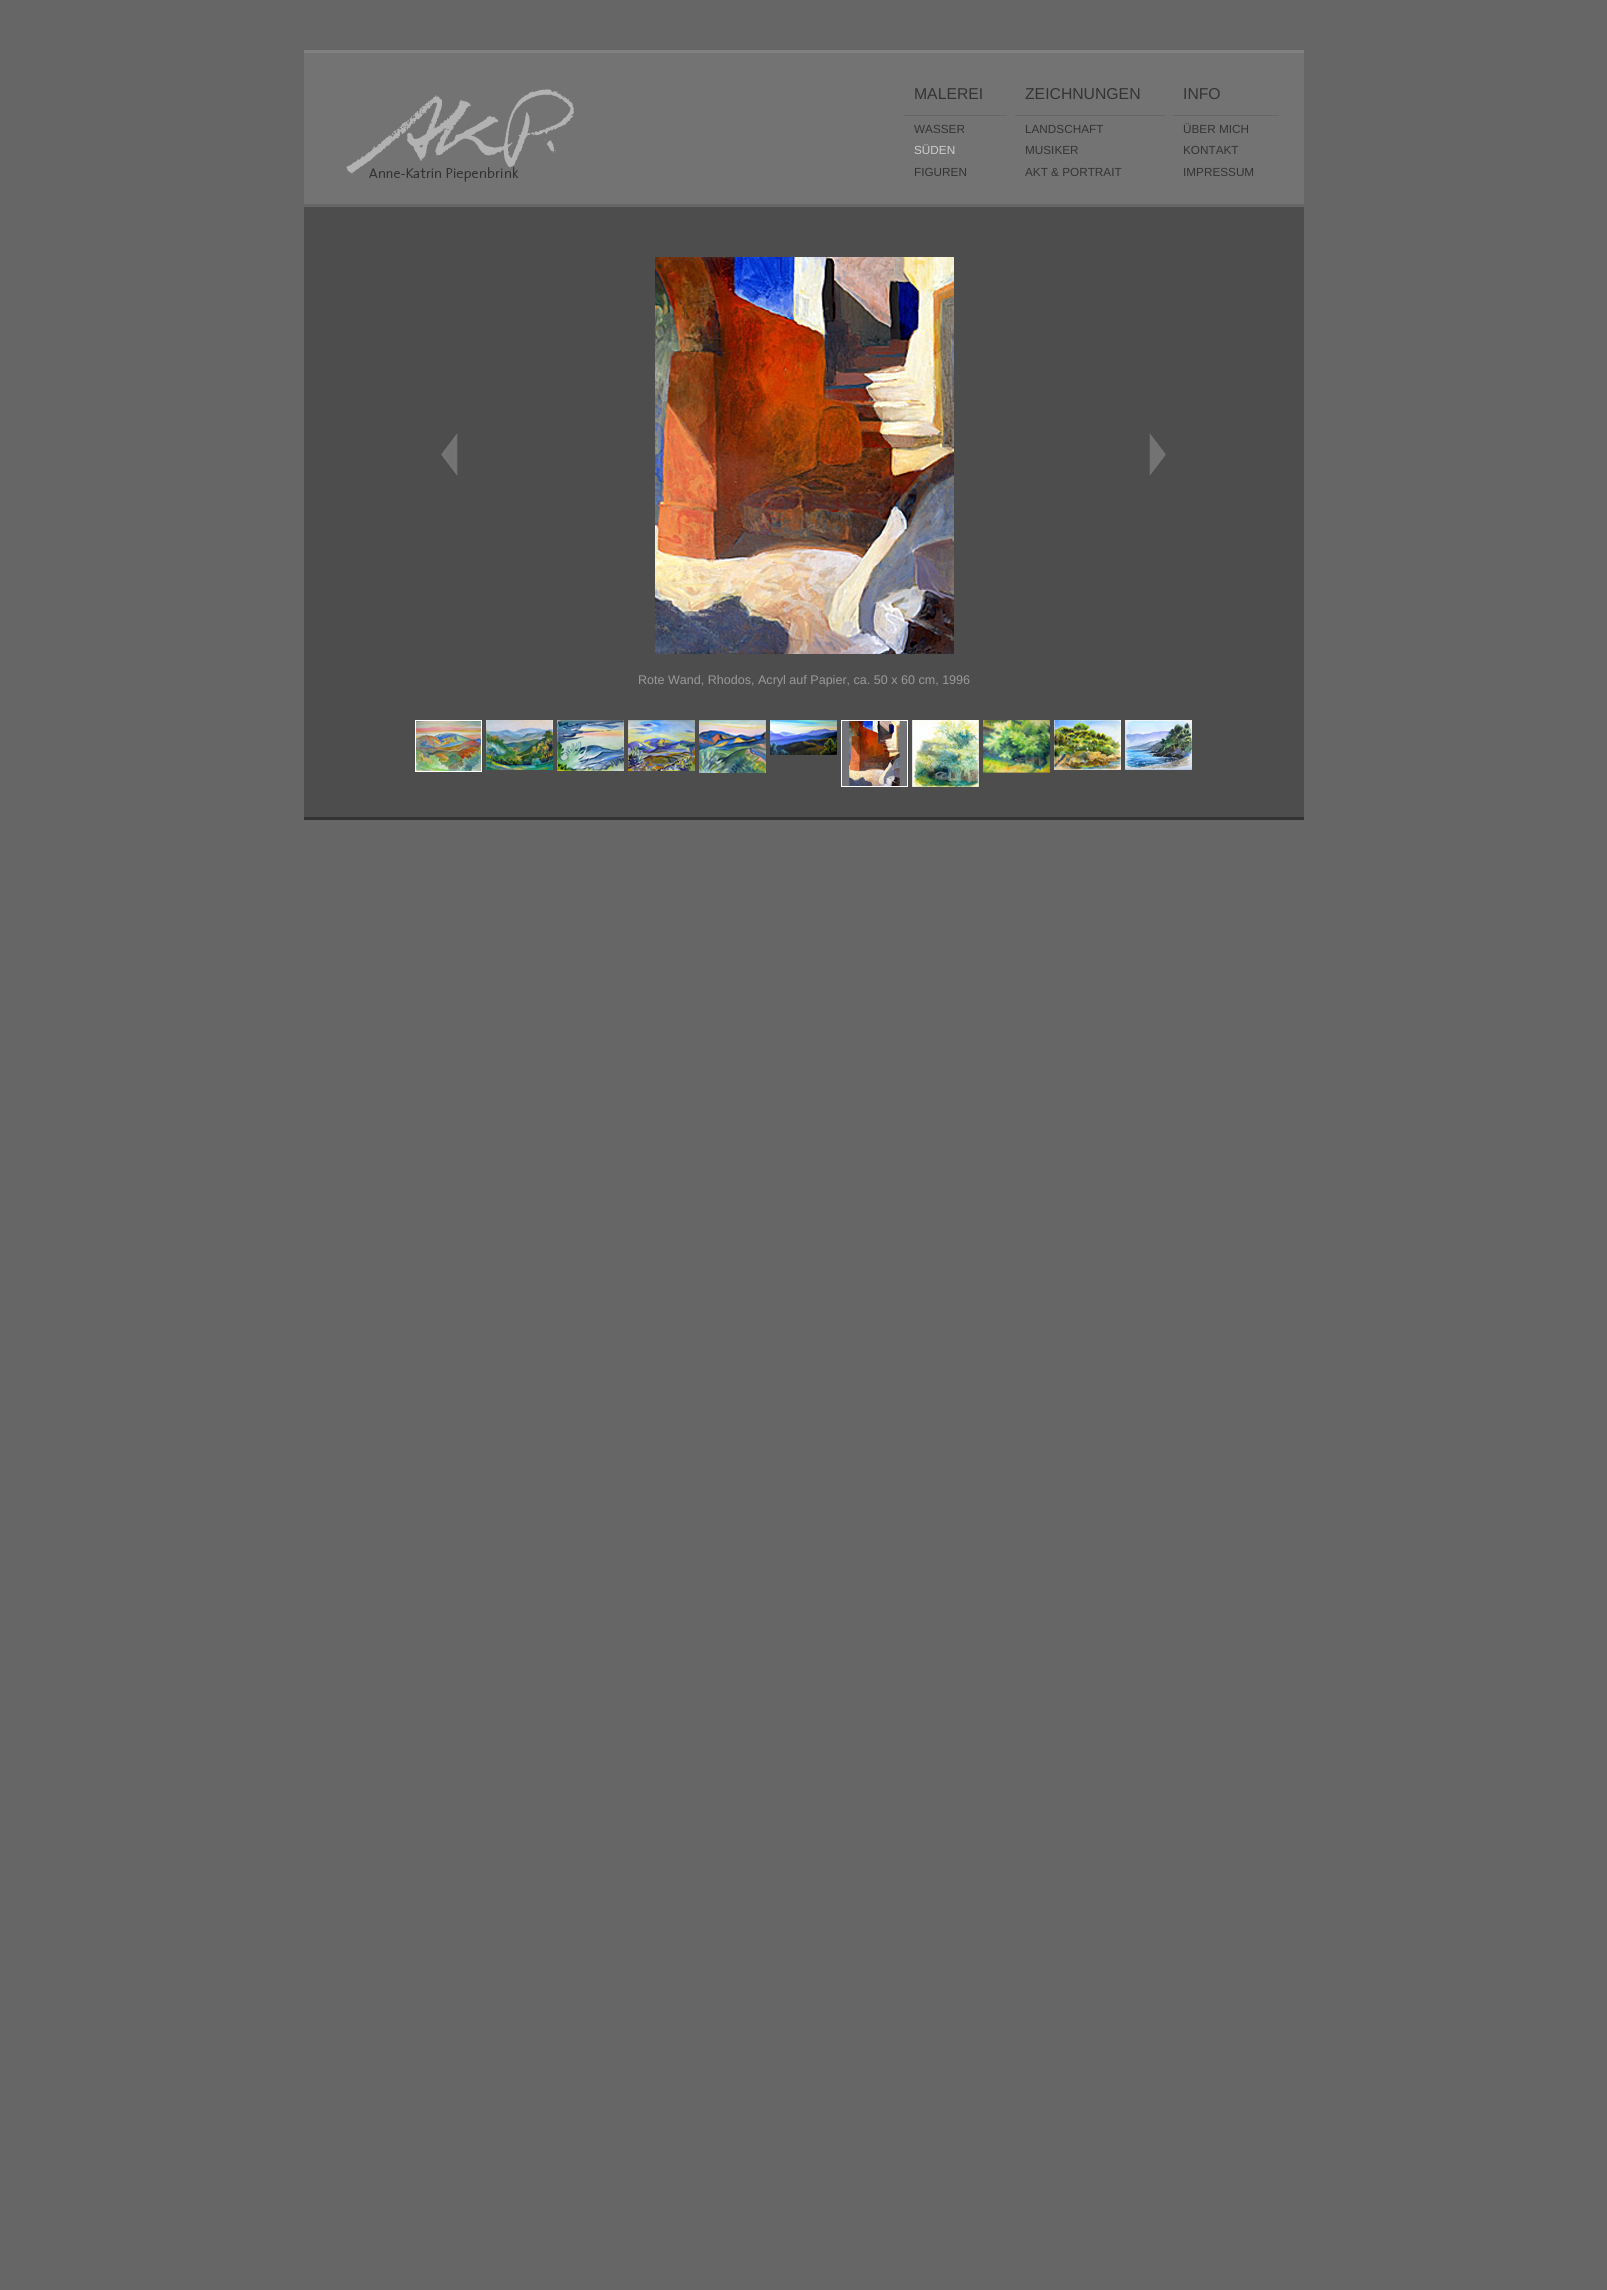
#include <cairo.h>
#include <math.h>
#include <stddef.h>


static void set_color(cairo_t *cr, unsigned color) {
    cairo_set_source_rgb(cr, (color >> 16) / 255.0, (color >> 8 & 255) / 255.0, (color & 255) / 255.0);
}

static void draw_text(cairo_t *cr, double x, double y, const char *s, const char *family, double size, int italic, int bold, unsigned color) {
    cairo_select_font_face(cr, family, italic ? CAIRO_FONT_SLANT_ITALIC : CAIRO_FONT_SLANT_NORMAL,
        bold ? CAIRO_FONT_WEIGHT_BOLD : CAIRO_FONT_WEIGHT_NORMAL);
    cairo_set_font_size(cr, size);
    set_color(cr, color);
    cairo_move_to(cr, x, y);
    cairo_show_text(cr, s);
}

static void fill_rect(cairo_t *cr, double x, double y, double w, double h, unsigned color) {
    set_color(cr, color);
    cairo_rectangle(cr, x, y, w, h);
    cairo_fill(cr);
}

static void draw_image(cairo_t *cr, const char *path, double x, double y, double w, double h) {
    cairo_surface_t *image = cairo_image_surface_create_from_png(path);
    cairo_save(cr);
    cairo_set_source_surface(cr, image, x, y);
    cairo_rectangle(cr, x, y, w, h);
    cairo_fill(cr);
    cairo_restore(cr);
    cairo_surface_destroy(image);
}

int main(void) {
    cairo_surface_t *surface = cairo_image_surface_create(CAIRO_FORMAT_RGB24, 1607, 2290);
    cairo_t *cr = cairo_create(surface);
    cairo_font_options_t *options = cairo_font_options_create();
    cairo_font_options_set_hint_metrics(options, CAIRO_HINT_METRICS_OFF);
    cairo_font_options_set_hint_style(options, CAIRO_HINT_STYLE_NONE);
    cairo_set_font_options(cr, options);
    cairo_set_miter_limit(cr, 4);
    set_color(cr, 0x666666);
    cairo_paint(cr);
    fill_rect(cr, 304, 207, 1000, 610, 0x4D4D4D);
    fill_rect(cr, 304, 53, 1000, 151, 0x737373);
    fill_rect(cr, 304, 50, 1000, 3, 0x808080);
    draw_image(cr, "assets/img1.png", 346, 89, 228, 93);
    fill_rect(cr, 904, 115, 103, 1, 0x666666);
    draw_text(cr, 914, 99, "MALEREI", "Liberation Sans", 15.75, 0, 0, 0x333333);
    draw_text(cr, 914, 133, "WASSER", "Liberation Sans", 11.75, 0, 0, 0x333333);
    draw_text(cr, 914, 154, "SÜDEN", "Liberation Sans", 11.75, 0, 0, 0xCCCCCC);
    draw_text(cr, 914, 176, "FIGUREN", "Liberation Sans", 11.75, 0, 0, 0x333333);
    fill_rect(cr, 1015, 115, 150, 1, 0x666666);
    draw_text(cr, 1025, 99, "ZEICHNUNGEN", "Liberation Sans", 15.75, 0, 0, 0x333333);
    draw_text(cr, 1025, 133, "LANDSCHAFT", "Liberation Sans", 11.75, 0, 0, 0x333333);
    draw_text(cr, 1025, 154, "MUSIKER", "Liberation Sans", 11.75, 0, 0, 0x333333);
    draw_text(cr, 1025, 176, "AKT & PORTRAIT", "Liberation Sans", 11.75, 0, 0, 0x333333);
    fill_rect(cr, 1173, 115, 106, 1, 0x666666);
    draw_text(cr, 1183, 99, "INFO", "Liberation Sans", 15.75, 0, 0, 0x333333);
    draw_text(cr, 1183, 133, "ÜBER MICH", "Liberation Sans", 11.75, 0, 0, 0x333333);
    draw_text(cr, 1183, 154, "KONTAKT", "Liberation Sans", 11.75, 0, 0, 0x333333);
    draw_text(cr, 1183, 176, "IMPRESSUM", "Liberation Sans", 11.75, 0, 0, 0x333333);
    draw_image(cr, "assets/img2.png", 441, 433, 17, 43);
    draw_image(cr, "assets/img3.png", 655, 257, 299, 397);
    draw_image(cr, "assets/img4.png", 1149, 433, 17, 43);
    draw_text(cr, 638, 684, "Rote Wand, Rhodos, Acryl auf Papier, ca. 50 x 60 cm, 1996", "Liberation Sans", 12.55, 0, 0, 0x999999);
    fill_rect(cr, 304, 817, 1000, 3, 0x333333);
    draw_image(cr, "assets/img5.png", 415, 720, 67, 52);
    draw_image(cr, "assets/img6.png", 486, 720, 67, 50);
    draw_image(cr, "assets/img7.png", 557, 720, 67, 51);
    draw_image(cr, "assets/img8.png", 628, 720, 67, 51);
    draw_image(cr, "assets/img9.png", 699, 720, 67, 53);
    draw_image(cr, "assets/img10.png", 770, 720, 67, 35);
    draw_image(cr, "assets/img11.png", 841, 720, 67, 67);
    draw_image(cr, "assets/img12.png", 912, 720, 67, 67);
    draw_image(cr, "assets/img13.png", 983, 720, 67, 53);
    draw_image(cr, "assets/img14.png", 1054, 720, 67, 50);
    draw_image(cr, "assets/img15.png", 1125, 720, 67, 50);
    cairo_surface_write_to_png(surface, "output.png");
    cairo_font_options_destroy(options);
    cairo_destroy(cr);
    cairo_surface_destroy(surface);
    return 0;
}
